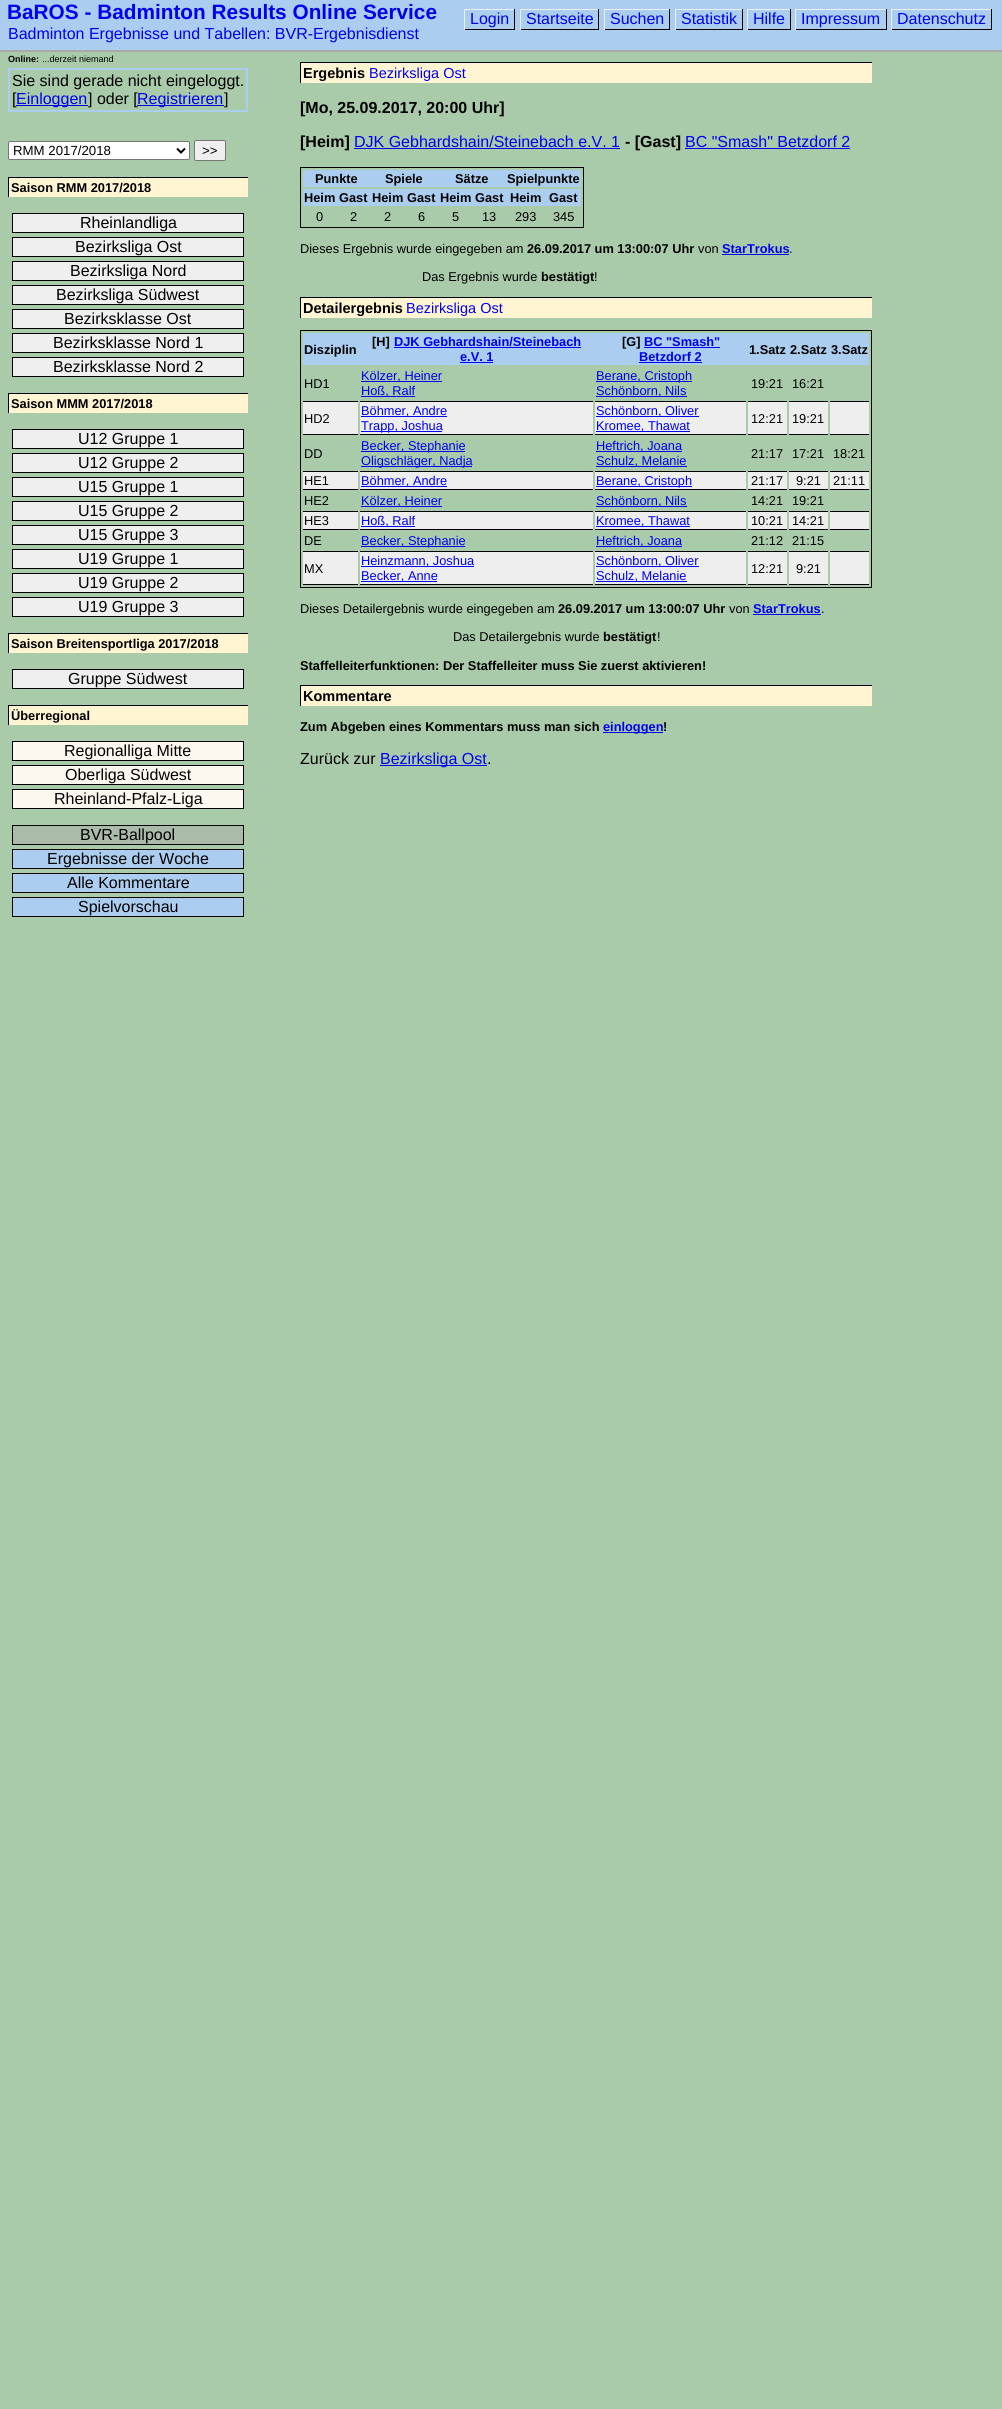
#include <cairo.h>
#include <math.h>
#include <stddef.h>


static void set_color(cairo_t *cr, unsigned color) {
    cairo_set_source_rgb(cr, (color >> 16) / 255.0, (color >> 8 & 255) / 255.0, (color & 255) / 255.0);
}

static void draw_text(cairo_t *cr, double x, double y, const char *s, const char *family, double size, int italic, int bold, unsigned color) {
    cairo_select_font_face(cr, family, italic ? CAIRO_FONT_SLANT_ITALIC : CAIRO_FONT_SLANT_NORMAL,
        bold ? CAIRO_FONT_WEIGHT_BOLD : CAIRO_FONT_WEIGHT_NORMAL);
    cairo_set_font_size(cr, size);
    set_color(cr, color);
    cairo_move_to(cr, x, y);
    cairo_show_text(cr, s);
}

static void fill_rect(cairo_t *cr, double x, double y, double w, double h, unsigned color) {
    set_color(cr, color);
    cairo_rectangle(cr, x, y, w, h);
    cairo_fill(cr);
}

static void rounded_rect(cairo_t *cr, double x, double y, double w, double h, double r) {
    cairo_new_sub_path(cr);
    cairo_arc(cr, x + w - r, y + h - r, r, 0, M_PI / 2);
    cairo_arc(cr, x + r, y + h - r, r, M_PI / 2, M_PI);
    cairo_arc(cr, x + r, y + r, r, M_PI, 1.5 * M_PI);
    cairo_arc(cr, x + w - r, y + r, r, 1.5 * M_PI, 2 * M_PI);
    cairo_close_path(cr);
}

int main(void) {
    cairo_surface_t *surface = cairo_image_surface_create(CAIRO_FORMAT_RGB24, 1002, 2409);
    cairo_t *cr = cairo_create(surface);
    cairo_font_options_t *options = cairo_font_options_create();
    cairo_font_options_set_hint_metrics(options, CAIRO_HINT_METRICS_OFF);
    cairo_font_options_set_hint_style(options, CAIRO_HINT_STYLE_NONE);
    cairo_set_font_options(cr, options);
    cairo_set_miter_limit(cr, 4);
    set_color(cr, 0xA9CBAA);
    cairo_paint(cr);
    fill_rect(cr, 0, 0, 1002, 50, 0xABCDEF);
    fill_rect(cr, 0, 50, 1002, 2, 0xAAAAAA);
    draw_text(cr, 7, 19, "BaROS - Badminton Results Online Service", "Liberation Sans", 20.8, 0, 1, 0x0000EE);
    draw_text(cr, 8, 39, "Badminton Ergebnisse und Tabellen: BVR-Ergebnisdienst", "Liberation Sans", 16, 0, 0, 0x0000EE);
    draw_text(cr, 470, 24, "Login", "Liberation Sans", 16, 0, 0, 0x0000EE);
    fill_rect(cr, 464, 9, 51, 1, 0xEFEFEF);
    fill_rect(cr, 514, 9, 1, 21, 0x000000);
    fill_rect(cr, 464, 29, 51, 1, 0x000000);
    fill_rect(cr, 464, 9, 1, 21, 0xEFEFEF);
    draw_text(cr, 526, 24, "Startseite", "Liberation Sans", 16, 0, 0, 0x0000EE);
    fill_rect(cr, 520, 9, 79, 1, 0xEFEFEF);
    fill_rect(cr, 598, 9, 1, 21, 0x000000);
    fill_rect(cr, 520, 29, 79, 1, 0x000000);
    fill_rect(cr, 520, 9, 1, 21, 0xEFEFEF);
    draw_text(cr, 610, 24, "Suchen", "Liberation Sans", 16, 0, 0, 0x0000EE);
    fill_rect(cr, 604, 9, 66, 1, 0xEFEFEF);
    fill_rect(cr, 669, 9, 1, 21, 0x000000);
    fill_rect(cr, 604, 29, 66, 1, 0x000000);
    fill_rect(cr, 604, 9, 1, 21, 0xEFEFEF);
    draw_text(cr, 681, 24, "Statistik", "Liberation Sans", 16, 0, 0, 0x0000EE);
    fill_rect(cr, 675, 9, 68, 1, 0xEFEFEF);
    fill_rect(cr, 742, 9, 1, 21, 0x000000);
    fill_rect(cr, 675, 29, 68, 1, 0x000000);
    fill_rect(cr, 675, 9, 1, 21, 0xEFEFEF);
    draw_text(cr, 753, 24, "Hilfe", "Liberation Sans", 16, 0, 0, 0x0000EE);
    fill_rect(cr, 747, 9, 44, 1, 0xEFEFEF);
    fill_rect(cr, 790, 9, 1, 21, 0x000000);
    fill_rect(cr, 747, 29, 44, 1, 0x000000);
    fill_rect(cr, 747, 9, 1, 21, 0xEFEFEF);
    draw_text(cr, 801, 24, "Impressum", "Liberation Sans", 16, 0, 0, 0x0000EE);
    fill_rect(cr, 795, 9, 92, 1, 0xEFEFEF);
    fill_rect(cr, 886, 9, 1, 21, 0x000000);
    fill_rect(cr, 795, 29, 92, 1, 0x000000);
    fill_rect(cr, 795, 9, 1, 21, 0xEFEFEF);
    draw_text(cr, 897, 24, "Datenschutz", "Liberation Sans", 16, 0, 0, 0x0000EE);
    fill_rect(cr, 891, 9, 101, 1, 0xEFEFEF);
    fill_rect(cr, 991, 9, 1, 21, 0x000000);
    fill_rect(cr, 891, 29, 101, 1, 0x000000);
    fill_rect(cr, 891, 9, 1, 21, 0xEFEFEF);
    draw_text(cr, 8, 62, "Online:", "Liberation Sans", 9, 0, 1, 0x000000);
    draw_text(cr, 42, 62, "...derzeit niemand", "Liberation Sans", 9, 0, 0, 0x000000);
    cairo_rectangle(cr, 9, 69, 238, 42);
    set_color(cr, 0xABCDEF);
    cairo_stroke(cr);
    draw_text(cr, 12, 86, "Sie sind gerade nicht eingeloggt.", "Liberation Sans", 16, 0, 0, 0x000000);
    draw_text(cr, 12, 104, "[", "Liberation Sans", 16, 0, 0, 0x000000);
    fill_rect(cr, 16, 105, 72, 1, 0x0000EE);
    draw_text(cr, 16, 104, "Einloggen", "Liberation Sans", 16, 0, 0, 0x0000EE);
    draw_text(cr, 88, 104, "] oder [", "Liberation Sans", 16, 0, 0, 0x000000);
    fill_rect(cr, 137, 105, 87, 1, 0x0000EE);
    draw_text(cr, 137, 104, "Registrieren", "Liberation Sans", 16, 0, 0, 0x0000EE);
    draw_text(cr, 224, 104, "]", "Liberation Sans", 16, 0, 0, 0x000000);
    fill_rect(cr, 301, 63, 571, 20, 0xFFF5D2);
    fill_rect(cr, 300, 62, 572, 1, 0x000000);
    fill_rect(cr, 300, 62, 1, 21, 0x000000);
    draw_text(cr, 303, 78, "Ergebnis", "Liberation Sans", 14.5, 0, 1, 0x000000);
    draw_text(cr, 369, 78, "Bezirksliga Ost", "Liberation Sans", 14.5, 0, 0, 0x0000EE);
    draw_text(cr, 300, 113, "[Mo, 25.09.2017, 20:00 Uhr]", "Liberation Sans", 16, 0, 1, 0x000000);
    draw_text(cr, 300, 147, "[Heim]", "Liberation Sans", 16, 0, 1, 0x000000);
    draw_text(cr, 354, 147, "DJK Gebhardshain/Steinebach e.V. 1", "Liberation Sans", 16, 0, 0, 0x0000EE);
    fill_rect(cr, 354, 148, 266, 1, 0x0000EE);
    draw_text(cr, 625, 147, "- [Gast]", "Liberation Sans", 16, 0, 1, 0x000000);
    draw_text(cr, 685, 147, "BC \"Smash\" Betzdorf 2", "Liberation Sans", 16, 0, 0, 0x0000EE);
    fill_rect(cr, 685, 148, 165, 1, 0x0000EE);
    cairo_rectangle(cr, 300.5, 167.5, 283, 60);
    set_color(cr, 0x000000);
    cairo_set_line_width(cr, 1);
    cairo_stroke(cr);
    fill_rect(cr, 303, 170, 278, 17, 0xABCDEF);
    draw_text(cr, 315, 183, "Punkte", "Liberation Sans", 12.8, 0, 1, 0x000000);
    draw_text(cr, 385, 183, "Spiele", "Liberation Sans", 12.8, 0, 1, 0x000000);
    draw_text(cr, 455, 183, "Sätze", "Liberation Sans", 12.8, 0, 1, 0x000000);
    draw_text(cr, 507, 183, "Spielpunkte", "Liberation Sans", 12.8, 0, 1, 0x000000);
    fill_rect(cr, 303, 189, 278, 17, 0xABCDEF);
    draw_text(cr, 304, 202, "Heim", "Liberation Sans", 12.8, 0, 1, 0x000000);
    draw_text(cr, 339, 202, "Gast", "Liberation Sans", 12.8, 0, 1, 0x000000);
    draw_text(cr, 372, 202, "Heim", "Liberation Sans", 12.8, 0, 1, 0x000000);
    draw_text(cr, 407, 202, "Gast", "Liberation Sans", 12.8, 0, 1, 0x000000);
    draw_text(cr, 440, 202, "Heim", "Liberation Sans", 12.8, 0, 1, 0x000000);
    draw_text(cr, 475, 202, "Gast", "Liberation Sans", 12.8, 0, 1, 0x000000);
    draw_text(cr, 510, 202, "Heim", "Liberation Sans", 12.8, 0, 1, 0x000000);
    draw_text(cr, 549, 202, "Gast", "Liberation Sans", 12.8, 0, 1, 0x000000);
    draw_text(cr, 316, 221, "0", "Liberation Sans", 12.8, 0, 0, 0x000000);
    draw_text(cr, 350, 221, "2", "Liberation Sans", 12.8, 0, 0, 0x000000);
    draw_text(cr, 384, 221, "2", "Liberation Sans", 12.8, 0, 0, 0x000000);
    draw_text(cr, 418, 221, "6", "Liberation Sans", 12.8, 0, 0, 0x000000);
    draw_text(cr, 452, 221, "5", "Liberation Sans", 12.8, 0, 0, 0x000000);
    draw_text(cr, 482, 221, "13", "Liberation Sans", 12.8, 0, 0, 0x000000);
    draw_text(cr, 515, 221, "293", "Liberation Sans", 12.8, 0, 0, 0x000000);
    draw_text(cr, 553, 221, "345", "Liberation Sans", 12.8, 0, 0, 0x000000);
    draw_text(cr, 300, 253, "Dieses Ergebnis wurde eingegeben am", "Liberation Sans", 12.8, 0, 0, 0x000000);
    draw_text(cr, 527, 253, "26.09.2017 um 13:00:07 Uhr", "Liberation Sans", 12.8, 0, 1, 0x000000);
    draw_text(cr, 698, 253, "von", "Liberation Sans", 12.8, 0, 0, 0x000000);
    draw_text(cr, 722, 253, "StarTrokus", "Liberation Sans", 12.8, 0, 1, 0x0000EE);
    fill_rect(cr, 722, 254, 67, 1, 0x0000EE);
    draw_text(cr, 789, 253, ".", "Liberation Sans", 12.8, 0, 0, 0x000000);
    draw_text(cr, 422, 281, "Das Ergebnis wurde", "Liberation Sans", 12.8, 0, 0, 0x000000);
    draw_text(cr, 541, 281, "bestätigt", "Liberation Sans", 12.8, 0, 1, 0x000000);
    draw_text(cr, 594, 281, "!", "Liberation Sans", 12.8, 0, 0, 0x000000);
    fill_rect(cr, 301, 298, 571, 20, 0xFFF5D2);
    fill_rect(cr, 300, 297, 572, 1, 0x000000);
    fill_rect(cr, 300, 297, 1, 21, 0x000000);
    draw_text(cr, 303, 313, "Detailergebnis", "Liberation Sans", 14.5, 0, 1, 0x000000);
    draw_text(cr, 406, 313, "Bezirksliga Ost", "Liberation Sans", 14.5, 0, 0, 0x0000EE);
    cairo_rectangle(cr, 300.5, 330.5, 571, 257);
    set_color(cr, 0x000000);
    cairo_stroke(cr);
    fill_rect(cr, 303, 333, 566, 32, 0xABCDEF);
    draw_text(cr, 304, 354, "Disziplin", "Liberation Sans", 12.8, 0, 1, 0x000000);
    draw_text(cr, 372, 346, "[H]", "Liberation Sans", 12.8, 0, 1, 0x000000);
    draw_text(cr, 394, 346, "DJK Gebhardshain/Steinebach", "Liberation Sans", 12.8, 0, 1, 0x0000EE);
    fill_rect(cr, 394, 347, 187, 1, 0x0000EE);
    draw_text(cr, 460, 361, "e.V. 1", "Liberation Sans", 12.8, 0, 1, 0x0000EE);
    fill_rect(cr, 460, 362, 33, 1, 0x0000EE);
    draw_text(cr, 622, 346, "[G]", "Liberation Sans", 12.8, 0, 1, 0x000000);
    draw_text(cr, 644, 346, "BC \"Smash\"", "Liberation Sans", 12.8, 0, 1, 0x0000EE);
    fill_rect(cr, 644, 347, 76, 1, 0x0000EE);
    draw_text(cr, 639, 361, "Betzdorf 2", "Liberation Sans", 12.8, 0, 1, 0x0000EE);
    fill_rect(cr, 639, 362, 63, 1, 0x0000EE);
    draw_text(cr, 749, 354, "1.Satz", "Liberation Sans", 12.8, 0, 1, 0x000000);
    draw_text(cr, 790, 354, "2.Satz", "Liberation Sans", 12.8, 0, 1, 0x000000);
    draw_text(cr, 831, 354, "3.Satz", "Liberation Sans", 12.8, 0, 1, 0x000000);
    draw_text(cr, 304, 388, "HD1", "Liberation Sans", 12.8, 0, 0, 0x000000);
    fill_rect(cr, 361, 381, 81, 1, 0x0000EE);
    draw_text(cr, 361, 380, "Kölzer, Heiner", "Liberation Sans", 12.8, 0, 0, 0x0000EE);
    fill_rect(cr, 361, 396, 54, 1, 0x0000EE);
    draw_text(cr, 361, 395, "Hoß, Ralf", "Liberation Sans", 12.8, 0, 0, 0x0000EE);
    fill_rect(cr, 596, 381, 96, 1, 0x0000EE);
    draw_text(cr, 596, 380, "Berane, Cristoph", "Liberation Sans", 12.8, 0, 0, 0x0000EE);
    fill_rect(cr, 596, 396, 91, 1, 0x0000EE);
    draw_text(cr, 596, 395, "Schönborn, Nils", "Liberation Sans", 12.8, 0, 0, 0x0000EE);
    draw_text(cr, 751, 388, "19:21", "Liberation Sans", 12.8, 0, 0, 0x000000);
    draw_text(cr, 792, 388, "16:21", "Liberation Sans", 12.8, 0, 0, 0x000000);
    fill_rect(cr, 303, 402, 55, 32, 0xEEEEEE);
    fill_rect(cr, 303, 401, 55, 1, 0x000000);
    fill_rect(cr, 303, 434, 55, 1, 0x000000);
    draw_text(cr, 304, 423, "HD2", "Liberation Sans", 12.8, 0, 0, 0x000000);
    fill_rect(cr, 360, 402, 233, 32, 0xEEEEEE);
    fill_rect(cr, 360, 401, 233, 1, 0x000000);
    fill_rect(cr, 360, 434, 233, 1, 0x000000);
    fill_rect(cr, 361, 416, 86, 1, 0x0000EE);
    draw_text(cr, 361, 415, "Böhmer, Andre", "Liberation Sans", 12.8, 0, 0, 0x0000EE);
    fill_rect(cr, 361, 431, 81, 1, 0x0000EE);
    draw_text(cr, 361, 430, "Trapp, Joshua", "Liberation Sans", 12.8, 0, 0, 0x0000EE);
    fill_rect(cr, 595, 402, 151, 32, 0xEEEEEE);
    fill_rect(cr, 595, 401, 151, 1, 0x000000);
    fill_rect(cr, 595, 434, 151, 1, 0x000000);
    fill_rect(cr, 596, 416, 103, 1, 0x0000EE);
    draw_text(cr, 596, 415, "Schönborn, Oliver", "Liberation Sans", 12.8, 0, 0, 0x0000EE);
    fill_rect(cr, 596, 431, 94, 1, 0x0000EE);
    draw_text(cr, 596, 430, "Kromee, Thawat", "Liberation Sans", 12.8, 0, 0, 0x0000EE);
    fill_rect(cr, 748, 402, 39, 32, 0xEEEEEE);
    fill_rect(cr, 748, 401, 39, 1, 0x000000);
    fill_rect(cr, 748, 434, 39, 1, 0x000000);
    draw_text(cr, 751, 423, "12:21", "Liberation Sans", 12.8, 0, 0, 0x000000);
    fill_rect(cr, 789, 402, 39, 32, 0xEEEEEE);
    fill_rect(cr, 789, 401, 39, 1, 0x000000);
    fill_rect(cr, 789, 434, 39, 1, 0x000000);
    draw_text(cr, 792, 423, "19:21", "Liberation Sans", 12.8, 0, 0, 0x000000);
    fill_rect(cr, 830, 402, 39, 32, 0xEEEEEE);
    fill_rect(cr, 830, 401, 39, 1, 0x000000);
    fill_rect(cr, 830, 434, 39, 1, 0x000000);
    draw_text(cr, 304, 458, "DD", "Liberation Sans", 12.8, 0, 0, 0x000000);
    fill_rect(cr, 361, 451, 104, 1, 0x0000EE);
    draw_text(cr, 361, 450, "Becker, Stephanie", "Liberation Sans", 12.8, 0, 0, 0x0000EE);
    fill_rect(cr, 361, 466, 111, 1, 0x0000EE);
    draw_text(cr, 361, 465, "Oligschläger, Nadja", "Liberation Sans", 12.8, 0, 0, 0x0000EE);
    fill_rect(cr, 596, 451, 86, 1, 0x0000EE);
    draw_text(cr, 596, 450, "Heftrich, Joana", "Liberation Sans", 12.8, 0, 0, 0x0000EE);
    fill_rect(cr, 596, 466, 91, 1, 0x0000EE);
    draw_text(cr, 596, 465, "Schulz, Melanie", "Liberation Sans", 12.8, 0, 0, 0x0000EE);
    draw_text(cr, 751, 458, "21:17", "Liberation Sans", 12.8, 0, 0, 0x000000);
    draw_text(cr, 792, 458, "17:21", "Liberation Sans", 12.8, 0, 0, 0x000000);
    draw_text(cr, 833, 458, "18:21", "Liberation Sans", 12.8, 0, 0, 0x000000);
    fill_rect(cr, 303, 472, 55, 17, 0xEEEEEE);
    fill_rect(cr, 303, 471, 55, 1, 0x000000);
    fill_rect(cr, 303, 489, 55, 1, 0x000000);
    draw_text(cr, 304, 485, "HE1", "Liberation Sans", 12.8, 0, 0, 0x000000);
    fill_rect(cr, 360, 472, 233, 17, 0xEEEEEE);
    fill_rect(cr, 360, 471, 233, 1, 0x000000);
    fill_rect(cr, 360, 489, 233, 1, 0x000000);
    fill_rect(cr, 361, 486, 86, 1, 0x0000EE);
    draw_text(cr, 361, 485, "Böhmer, Andre", "Liberation Sans", 12.8, 0, 0, 0x0000EE);
    fill_rect(cr, 595, 472, 151, 17, 0xEEEEEE);
    fill_rect(cr, 595, 471, 151, 1, 0x000000);
    fill_rect(cr, 595, 489, 151, 1, 0x000000);
    fill_rect(cr, 596, 486, 96, 1, 0x0000EE);
    draw_text(cr, 596, 485, "Berane, Cristoph", "Liberation Sans", 12.8, 0, 0, 0x0000EE);
    fill_rect(cr, 748, 472, 39, 17, 0xEEEEEE);
    fill_rect(cr, 748, 471, 39, 1, 0x000000);
    fill_rect(cr, 748, 489, 39, 1, 0x000000);
    draw_text(cr, 751, 485, "21:17", "Liberation Sans", 12.8, 0, 0, 0x000000);
    fill_rect(cr, 789, 472, 39, 17, 0xEEEEEE);
    fill_rect(cr, 789, 471, 39, 1, 0x000000);
    fill_rect(cr, 789, 489, 39, 1, 0x000000);
    draw_text(cr, 796, 485, "9:21", "Liberation Sans", 12.8, 0, 0, 0x000000);
    fill_rect(cr, 830, 472, 39, 17, 0xEEEEEE);
    fill_rect(cr, 830, 471, 39, 1, 0x000000);
    fill_rect(cr, 830, 489, 39, 1, 0x000000);
    draw_text(cr, 833, 485, "21:11", "Liberation Sans", 12.8, 0, 0, 0x000000);
    draw_text(cr, 304, 505, "HE2", "Liberation Sans", 12.8, 0, 0, 0x000000);
    fill_rect(cr, 361, 506, 81, 1, 0x0000EE);
    draw_text(cr, 361, 505, "Kölzer, Heiner", "Liberation Sans", 12.8, 0, 0, 0x0000EE);
    fill_rect(cr, 596, 506, 91, 1, 0x0000EE);
    draw_text(cr, 596, 505, "Schönborn, Nils", "Liberation Sans", 12.8, 0, 0, 0x0000EE);
    draw_text(cr, 751, 505, "14:21", "Liberation Sans", 12.8, 0, 0, 0x000000);
    draw_text(cr, 792, 505, "19:21", "Liberation Sans", 12.8, 0, 0, 0x000000);
    fill_rect(cr, 303, 512, 55, 17, 0xEEEEEE);
    fill_rect(cr, 303, 511, 55, 1, 0x000000);
    fill_rect(cr, 303, 529, 55, 1, 0x000000);
    draw_text(cr, 304, 525, "HE3", "Liberation Sans", 12.8, 0, 0, 0x000000);
    fill_rect(cr, 360, 512, 233, 17, 0xEEEEEE);
    fill_rect(cr, 360, 511, 233, 1, 0x000000);
    fill_rect(cr, 360, 529, 233, 1, 0x000000);
    fill_rect(cr, 361, 526, 54, 1, 0x0000EE);
    draw_text(cr, 361, 525, "Hoß, Ralf", "Liberation Sans", 12.8, 0, 0, 0x0000EE);
    fill_rect(cr, 595, 512, 151, 17, 0xEEEEEE);
    fill_rect(cr, 595, 511, 151, 1, 0x000000);
    fill_rect(cr, 595, 529, 151, 1, 0x000000);
    fill_rect(cr, 596, 526, 94, 1, 0x0000EE);
    draw_text(cr, 596, 525, "Kromee, Thawat", "Liberation Sans", 12.8, 0, 0, 0x0000EE);
    fill_rect(cr, 748, 512, 39, 17, 0xEEEEEE);
    fill_rect(cr, 748, 511, 39, 1, 0x000000);
    fill_rect(cr, 748, 529, 39, 1, 0x000000);
    draw_text(cr, 751, 525, "10:21", "Liberation Sans", 12.8, 0, 0, 0x000000);
    fill_rect(cr, 789, 512, 39, 17, 0xEEEEEE);
    fill_rect(cr, 789, 511, 39, 1, 0x000000);
    fill_rect(cr, 789, 529, 39, 1, 0x000000);
    draw_text(cr, 792, 525, "14:21", "Liberation Sans", 12.8, 0, 0, 0x000000);
    fill_rect(cr, 830, 512, 39, 17, 0xEEEEEE);
    fill_rect(cr, 830, 511, 39, 1, 0x000000);
    fill_rect(cr, 830, 529, 39, 1, 0x000000);
    draw_text(cr, 304, 545, "DE", "Liberation Sans", 12.8, 0, 0, 0x000000);
    fill_rect(cr, 361, 546, 104, 1, 0x0000EE);
    draw_text(cr, 361, 545, "Becker, Stephanie", "Liberation Sans", 12.8, 0, 0, 0x0000EE);
    fill_rect(cr, 596, 546, 86, 1, 0x0000EE);
    draw_text(cr, 596, 545, "Heftrich, Joana", "Liberation Sans", 12.8, 0, 0, 0x0000EE);
    draw_text(cr, 751, 545, "21:12", "Liberation Sans", 12.8, 0, 0, 0x000000);
    draw_text(cr, 792, 545, "21:15", "Liberation Sans", 12.8, 0, 0, 0x000000);
    fill_rect(cr, 303, 552, 55, 32, 0xEEEEEE);
    fill_rect(cr, 303, 551, 55, 1, 0x000000);
    fill_rect(cr, 303, 584, 55, 1, 0x000000);
    draw_text(cr, 304, 573, "MX", "Liberation Sans", 12.8, 0, 0, 0x000000);
    fill_rect(cr, 360, 552, 233, 32, 0xEEEEEE);
    fill_rect(cr, 360, 551, 233, 1, 0x000000);
    fill_rect(cr, 360, 584, 233, 1, 0x000000);
    fill_rect(cr, 361, 566, 113, 1, 0x0000EE);
    draw_text(cr, 361, 565, "Heinzmann, Joshua", "Liberation Sans", 12.8, 0, 0, 0x0000EE);
    fill_rect(cr, 361, 581, 76, 1, 0x0000EE);
    draw_text(cr, 361, 580, "Becker, Anne", "Liberation Sans", 12.8, 0, 0, 0x0000EE);
    fill_rect(cr, 595, 552, 151, 32, 0xEEEEEE);
    fill_rect(cr, 595, 551, 151, 1, 0x000000);
    fill_rect(cr, 595, 584, 151, 1, 0x000000);
    fill_rect(cr, 596, 566, 103, 1, 0x0000EE);
    draw_text(cr, 596, 565, "Schönborn, Oliver", "Liberation Sans", 12.8, 0, 0, 0x0000EE);
    fill_rect(cr, 596, 581, 91, 1, 0x0000EE);
    draw_text(cr, 596, 580, "Schulz, Melanie", "Liberation Sans", 12.8, 0, 0, 0x0000EE);
    fill_rect(cr, 748, 552, 39, 32, 0xEEEEEE);
    fill_rect(cr, 748, 551, 39, 1, 0x000000);
    fill_rect(cr, 748, 584, 39, 1, 0x000000);
    draw_text(cr, 751, 573, "12:21", "Liberation Sans", 12.8, 0, 0, 0x000000);
    fill_rect(cr, 789, 552, 39, 32, 0xEEEEEE);
    fill_rect(cr, 789, 551, 39, 1, 0x000000);
    fill_rect(cr, 789, 584, 39, 1, 0x000000);
    draw_text(cr, 796, 573, "9:21", "Liberation Sans", 12.8, 0, 0, 0x000000);
    fill_rect(cr, 830, 552, 39, 32, 0xEEEEEE);
    fill_rect(cr, 830, 551, 39, 1, 0x000000);
    fill_rect(cr, 830, 584, 39, 1, 0x000000);
    draw_text(cr, 300, 613, "Dieses Detailergebnis wurde eingegeben am", "Liberation Sans", 12.8, 0, 0, 0x000000);
    draw_text(cr, 558, 613, "26.09.2017 um 13:00:07 Uhr", "Liberation Sans", 12.8, 0, 1, 0x000000);
    draw_text(cr, 729, 613, "von", "Liberation Sans", 12.8, 0, 0, 0x000000);
    draw_text(cr, 753, 613, "StarTrokus", "Liberation Sans", 12.8, 0, 1, 0x0000EE);
    fill_rect(cr, 753, 614, 68, 1, 0x0000EE);
    draw_text(cr, 821, 613, ".", "Liberation Sans", 12.8, 0, 0, 0x000000);
    draw_text(cr, 453, 641, "Das Detailergebnis wurde", "Liberation Sans", 12.8, 0, 0, 0x000000);
    draw_text(cr, 603, 641, "bestätigt", "Liberation Sans", 12.8, 0, 1, 0x000000);
    draw_text(cr, 657, 641, "!", "Liberation Sans", 12.8, 0, 0, 0x000000);
    draw_text(cr, 300, 670, "Staffelleiterfunktionen: Der Staffelleiter muss Sie zuerst aktivieren!", "Liberation Sans", 12.8, 0, 1, 0x000000);
    fill_rect(cr, 301, 686, 571, 20, 0xFFF5D2);
    fill_rect(cr, 300, 685, 572, 1, 0x000000);
    fill_rect(cr, 300, 685, 1, 21, 0x000000);
    draw_text(cr, 303, 701, "Kommentare", "Liberation Sans", 14.5, 0, 1, 0x000000);
    draw_text(cr, 300, 731, "Zum Abgeben eines Kommentars muss man sich", "Liberation Sans", 12.8, 0, 1, 0x000000);
    fill_rect(cr, 603, 732, 60, 1, 0x0000EE);
    draw_text(cr, 603, 731, "einloggen", "Liberation Sans", 12.8, 0, 1, 0x0000EE);
    draw_text(cr, 663, 731, "!", "Liberation Sans", 12.8, 0, 1, 0x000000);
    draw_text(cr, 300, 764, "Zurück zur", "Liberation Sans", 16, 0, 0, 0x000000);
    fill_rect(cr, 380, 765, 107, 1, 0x0000EE);
    draw_text(cr, 380, 764, "Bezirksliga Ost", "Liberation Sans", 16, 0, 0, 0x0000EE);
    draw_text(cr, 487, 764, ".", "Liberation Sans", 16, 0, 0, 0x000000);
    set_color(cr, 0xFFFFFF);
    rounded_rect(cr, 8.5, 141.5, 181, 18, 1.5);
    cairo_fill_preserve(cr);
    set_color(cr, 0x767676);
    cairo_stroke(cr);
    cairo_new_path(cr);
    cairo_move_to(cr, 177, 148.5);
    cairo_line_to(cr, 181, 152.5);
    cairo_line_to(cr, 185, 148.5);
    set_color(cr, 0x000000);
    cairo_set_line_width(cr, 2);
    cairo_stroke(cr);
    draw_text(cr, 13, 155, "RMM 2017/2018", "Liberation Sans", 13.25, 0, 0, 0x000000);
    set_color(cr, 0xEFEFEF);
    rounded_rect(cr, 194.5, 140.5, 31, 20, 1.5);
    cairo_fill_preserve(cr);
    set_color(cr, 0x767676);
    cairo_set_line_width(cr, 1);
    cairo_stroke(cr);
    draw_text(cr, 202, 155, ">>", "Liberation Sans", 13.25, 0, 0, 0x000000);
    fill_rect(cr, 9, 178, 239, 19, 0xFFF5D2);
    fill_rect(cr, 8, 177, 240, 1, 0x000000);
    fill_rect(cr, 8, 177, 1, 20, 0x000000);
    draw_text(cr, 11, 192, "Saison RMM 2017/2018", "Liberation Sans", 12.8, 0, 1, 0x000000);
    set_color(cr, 0xEFEFEF);
    cairo_rectangle(cr, 12.5, 213.5, 231, 19);
    cairo_fill_preserve(cr);
    set_color(cr, 0x000000);
    cairo_stroke(cr);
    draw_text(cr, 80, 228, "Rheinlandliga", "Liberation Sans", 16, 0, 0, 0x000000);
    set_color(cr, 0xEFEFEF);
    cairo_rectangle(cr, 12.5, 237.5, 231, 19);
    cairo_fill_preserve(cr);
    set_color(cr, 0x000000);
    cairo_stroke(cr);
    draw_text(cr, 75, 252, "Bezirksliga Ost", "Liberation Sans", 16, 0, 0, 0x000000);
    set_color(cr, 0xEFEFEF);
    cairo_rectangle(cr, 12.5, 261.5, 231, 19);
    cairo_fill_preserve(cr);
    set_color(cr, 0x000000);
    cairo_stroke(cr);
    draw_text(cr, 70, 276, "Bezirksliga Nord", "Liberation Sans", 16, 0, 0, 0x000000);
    set_color(cr, 0xEFEFEF);
    cairo_rectangle(cr, 12.5, 285.5, 231, 19);
    cairo_fill_preserve(cr);
    set_color(cr, 0x000000);
    cairo_stroke(cr);
    draw_text(cr, 56, 300, "Bezirksliga Südwest", "Liberation Sans", 16, 0, 0, 0x000000);
    set_color(cr, 0xEFEFEF);
    cairo_rectangle(cr, 12.5, 309.5, 231, 19);
    cairo_fill_preserve(cr);
    set_color(cr, 0x000000);
    cairo_stroke(cr);
    draw_text(cr, 64, 324, "Bezirksklasse Ost", "Liberation Sans", 16, 0, 0, 0x000000);
    set_color(cr, 0xEFEFEF);
    cairo_rectangle(cr, 12.5, 333.5, 231, 19);
    cairo_fill_preserve(cr);
    set_color(cr, 0x000000);
    cairo_stroke(cr);
    draw_text(cr, 53, 348, "Bezirksklasse Nord 1", "Liberation Sans", 16, 0, 0, 0x000000);
    set_color(cr, 0xEFEFEF);
    cairo_rectangle(cr, 12.5, 357.5, 231, 19);
    cairo_fill_preserve(cr);
    set_color(cr, 0x000000);
    cairo_stroke(cr);
    draw_text(cr, 53, 372, "Bezirksklasse Nord 2", "Liberation Sans", 16, 0, 0, 0x000000);
    fill_rect(cr, 9, 394, 239, 19, 0xFFF5D2);
    fill_rect(cr, 8, 393, 240, 1, 0x000000);
    fill_rect(cr, 8, 393, 1, 20, 0x000000);
    draw_text(cr, 11, 408, "Saison MMM 2017/2018", "Liberation Sans", 12.8, 0, 1, 0x000000);
    set_color(cr, 0xEFEFEF);
    cairo_rectangle(cr, 12.5, 429.5, 231, 19);
    cairo_fill_preserve(cr);
    set_color(cr, 0x000000);
    cairo_stroke(cr);
    draw_text(cr, 78, 444, "U12 Gruppe 1", "Liberation Sans", 16, 0, 0, 0x000000);
    set_color(cr, 0xEFEFEF);
    cairo_rectangle(cr, 12.5, 453.5, 231, 19);
    cairo_fill_preserve(cr);
    set_color(cr, 0x000000);
    cairo_stroke(cr);
    draw_text(cr, 78, 468, "U12 Gruppe 2", "Liberation Sans", 16, 0, 0, 0x000000);
    set_color(cr, 0xEFEFEF);
    cairo_rectangle(cr, 12.5, 477.5, 231, 19);
    cairo_fill_preserve(cr);
    set_color(cr, 0x000000);
    cairo_stroke(cr);
    draw_text(cr, 78, 492, "U15 Gruppe 1", "Liberation Sans", 16, 0, 0, 0x000000);
    set_color(cr, 0xEFEFEF);
    cairo_rectangle(cr, 12.5, 501.5, 231, 19);
    cairo_fill_preserve(cr);
    set_color(cr, 0x000000);
    cairo_stroke(cr);
    draw_text(cr, 78, 516, "U15 Gruppe 2", "Liberation Sans", 16, 0, 0, 0x000000);
    set_color(cr, 0xEFEFEF);
    cairo_rectangle(cr, 12.5, 525.5, 231, 19);
    cairo_fill_preserve(cr);
    set_color(cr, 0x000000);
    cairo_stroke(cr);
    draw_text(cr, 78, 540, "U15 Gruppe 3", "Liberation Sans", 16, 0, 0, 0x000000);
    set_color(cr, 0xEFEFEF);
    cairo_rectangle(cr, 12.5, 549.5, 231, 19);
    cairo_fill_preserve(cr);
    set_color(cr, 0x000000);
    cairo_stroke(cr);
    draw_text(cr, 78, 564, "U19 Gruppe 1", "Liberation Sans", 16, 0, 0, 0x000000);
    set_color(cr, 0xEFEFEF);
    cairo_rectangle(cr, 12.5, 573.5, 231, 19);
    cairo_fill_preserve(cr);
    set_color(cr, 0x000000);
    cairo_stroke(cr);
    draw_text(cr, 78, 588, "U19 Gruppe 2", "Liberation Sans", 16, 0, 0, 0x000000);
    set_color(cr, 0xEFEFEF);
    cairo_rectangle(cr, 12.5, 597.5, 231, 19);
    cairo_fill_preserve(cr);
    set_color(cr, 0x000000);
    cairo_stroke(cr);
    draw_text(cr, 78, 612, "U19 Gruppe 3", "Liberation Sans", 16, 0, 0, 0x000000);
    fill_rect(cr, 9, 634, 239, 19, 0xFFF5D2);
    fill_rect(cr, 8, 633, 240, 1, 0x000000);
    fill_rect(cr, 8, 633, 1, 20, 0x000000);
    draw_text(cr, 11, 648, "Saison Breitensportliga 2017/2018", "Liberation Sans", 12.8, 0, 1, 0x000000);
    set_color(cr, 0xEFEFEF);
    cairo_rectangle(cr, 12.5, 669.5, 231, 19);
    cairo_fill_preserve(cr);
    set_color(cr, 0x000000);
    cairo_stroke(cr);
    draw_text(cr, 68, 684, "Gruppe Südwest", "Liberation Sans", 16, 0, 0, 0x000000);
    fill_rect(cr, 9, 706, 239, 19, 0xFFF5D2);
    fill_rect(cr, 8, 705, 240, 1, 0x000000);
    fill_rect(cr, 8, 705, 1, 20, 0x000000);
    draw_text(cr, 11, 720, "Überregional", "Liberation Sans", 12.8, 0, 1, 0x000000);
    set_color(cr, 0xFCF7EF);
    cairo_rectangle(cr, 12.5, 741.5, 231, 19);
    cairo_fill_preserve(cr);
    set_color(cr, 0x000000);
    cairo_stroke(cr);
    draw_text(cr, 64, 756, "Regionalliga Mitte", "Liberation Sans", 16, 0, 0, 0x000000);
    set_color(cr, 0xFCF7EF);
    cairo_rectangle(cr, 12.5, 765.5, 231, 19);
    cairo_fill_preserve(cr);
    set_color(cr, 0x000000);
    cairo_stroke(cr);
    draw_text(cr, 65, 780, "Oberliga Südwest", "Liberation Sans", 16, 0, 0, 0x000000);
    set_color(cr, 0xFCF7EF);
    cairo_rectangle(cr, 12.5, 789.5, 231, 19);
    cairo_fill_preserve(cr);
    set_color(cr, 0x000000);
    cairo_stroke(cr);
    draw_text(cr, 54, 804, "Rheinland-Pfalz-Liga", "Liberation Sans", 16, 0, 0, 0x000000);
    set_color(cr, 0xAABBAA);
    cairo_rectangle(cr, 12.5, 825.5, 231, 19);
    cairo_fill_preserve(cr);
    set_color(cr, 0x000000);
    cairo_stroke(cr);
    draw_text(cr, 80, 840, "BVR-Ballpool", "Liberation Sans", 16, 0, 0, 0x000000);
    set_color(cr, 0xABCDEF);
    cairo_rectangle(cr, 12.5, 849.5, 231, 19);
    cairo_fill_preserve(cr);
    set_color(cr, 0x000000);
    cairo_stroke(cr);
    draw_text(cr, 47, 864, "Ergebnisse der Woche", "Liberation Sans", 16, 0, 0, 0x000000);
    set_color(cr, 0xABCDEF);
    cairo_rectangle(cr, 12.5, 873.5, 231, 19);
    cairo_fill_preserve(cr);
    set_color(cr, 0x000000);
    cairo_stroke(cr);
    draw_text(cr, 67, 888, "Alle Kommentare", "Liberation Sans", 16, 0, 0, 0x000000);
    set_color(cr, 0xABCDEF);
    cairo_rectangle(cr, 12.5, 897.5, 231, 19);
    cairo_fill_preserve(cr);
    set_color(cr, 0x000000);
    cairo_stroke(cr);
    draw_text(cr, 78, 912, "Spielvorschau", "Liberation Sans", 16, 0, 0, 0x000000);
    cairo_surface_write_to_png(surface, "output.png");
    cairo_font_options_destroy(options);
    cairo_destroy(cr);
    cairo_surface_destroy(surface);
    return 0;
}
